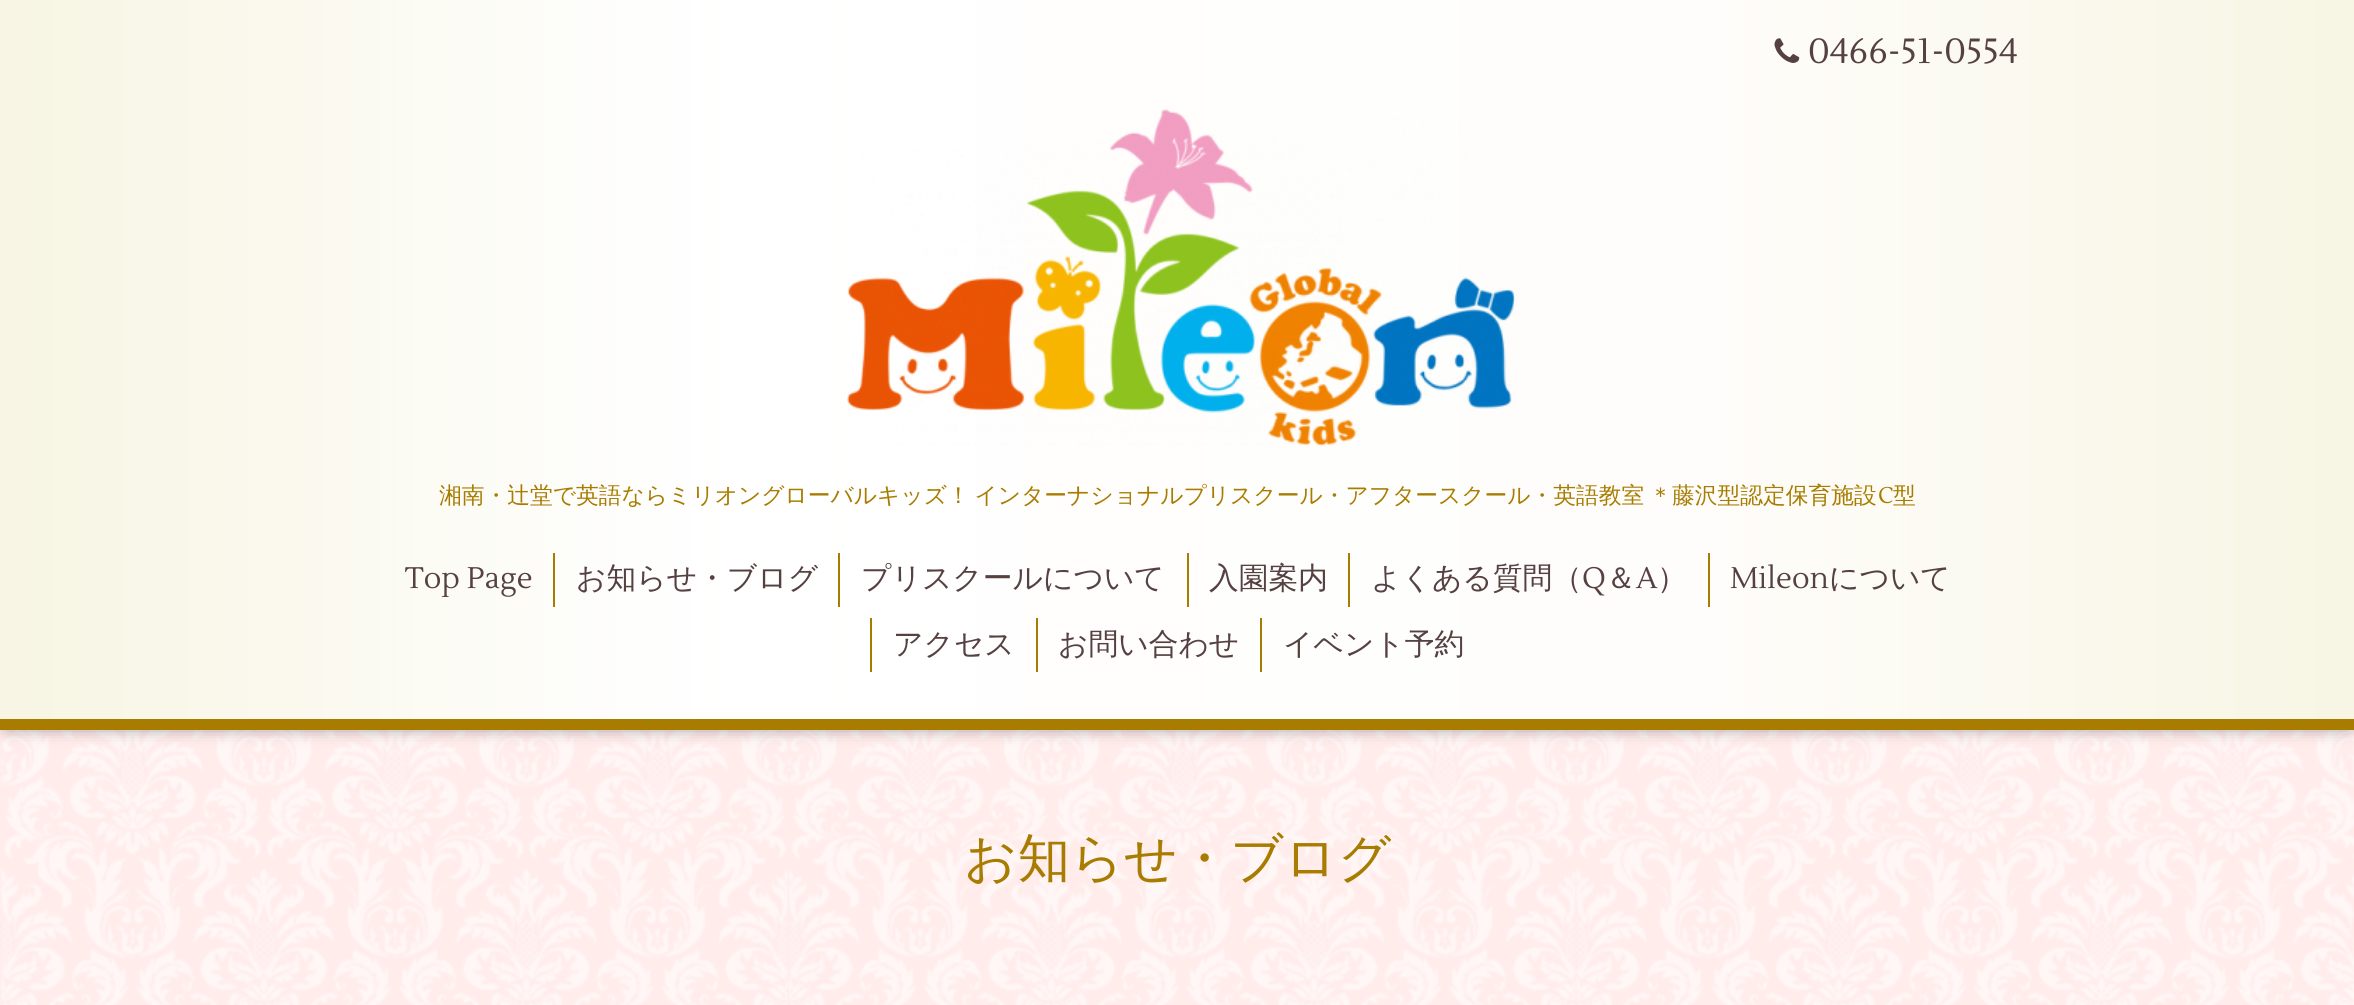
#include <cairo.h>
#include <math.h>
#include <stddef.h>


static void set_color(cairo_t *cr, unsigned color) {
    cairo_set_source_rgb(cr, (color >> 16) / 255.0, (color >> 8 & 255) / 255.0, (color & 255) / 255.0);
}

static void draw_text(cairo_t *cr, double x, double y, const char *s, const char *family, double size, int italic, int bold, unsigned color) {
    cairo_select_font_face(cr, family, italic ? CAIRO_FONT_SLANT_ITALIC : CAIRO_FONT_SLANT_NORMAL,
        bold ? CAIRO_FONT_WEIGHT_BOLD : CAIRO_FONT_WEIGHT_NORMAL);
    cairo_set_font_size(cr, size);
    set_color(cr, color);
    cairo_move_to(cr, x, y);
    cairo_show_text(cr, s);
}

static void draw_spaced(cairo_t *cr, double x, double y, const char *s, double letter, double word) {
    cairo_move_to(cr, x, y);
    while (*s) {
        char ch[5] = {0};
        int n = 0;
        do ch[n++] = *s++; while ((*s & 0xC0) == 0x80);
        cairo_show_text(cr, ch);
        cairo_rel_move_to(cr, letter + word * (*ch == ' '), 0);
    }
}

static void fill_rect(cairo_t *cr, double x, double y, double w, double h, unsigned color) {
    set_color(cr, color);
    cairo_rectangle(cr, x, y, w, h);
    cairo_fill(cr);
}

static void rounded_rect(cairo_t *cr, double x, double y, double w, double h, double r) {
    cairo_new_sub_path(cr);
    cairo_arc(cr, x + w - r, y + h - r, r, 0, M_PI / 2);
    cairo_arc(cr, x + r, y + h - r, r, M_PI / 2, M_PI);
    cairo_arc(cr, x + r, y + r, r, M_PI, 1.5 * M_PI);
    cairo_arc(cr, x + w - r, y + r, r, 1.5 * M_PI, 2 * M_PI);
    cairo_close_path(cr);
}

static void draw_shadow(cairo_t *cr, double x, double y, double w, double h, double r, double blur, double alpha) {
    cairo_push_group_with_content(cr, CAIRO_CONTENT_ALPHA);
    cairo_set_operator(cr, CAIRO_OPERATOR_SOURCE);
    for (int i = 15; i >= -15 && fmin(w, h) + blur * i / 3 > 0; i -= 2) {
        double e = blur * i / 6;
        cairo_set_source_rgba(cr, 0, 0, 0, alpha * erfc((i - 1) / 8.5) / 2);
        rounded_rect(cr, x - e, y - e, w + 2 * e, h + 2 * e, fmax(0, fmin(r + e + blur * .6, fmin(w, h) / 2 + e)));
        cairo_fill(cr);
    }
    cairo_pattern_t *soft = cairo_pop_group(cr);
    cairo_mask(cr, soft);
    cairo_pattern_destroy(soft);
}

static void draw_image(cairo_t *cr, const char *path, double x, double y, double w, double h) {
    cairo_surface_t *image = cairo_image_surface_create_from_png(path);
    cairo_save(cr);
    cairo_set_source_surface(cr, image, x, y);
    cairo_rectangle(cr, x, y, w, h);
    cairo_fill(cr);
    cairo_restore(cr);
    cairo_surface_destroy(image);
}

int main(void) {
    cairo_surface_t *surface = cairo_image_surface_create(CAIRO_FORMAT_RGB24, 2354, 1005);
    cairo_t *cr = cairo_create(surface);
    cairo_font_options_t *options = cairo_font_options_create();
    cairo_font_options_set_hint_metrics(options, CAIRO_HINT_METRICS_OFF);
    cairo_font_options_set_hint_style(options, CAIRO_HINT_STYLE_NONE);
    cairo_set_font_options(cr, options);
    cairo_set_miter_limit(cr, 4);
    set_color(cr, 0xFFECEB);
    cairo_paint(cr);
    draw_image(cr, "assets/img1.png", 0, 730, 2354, 275);
    set_color(cr, 0x000000);
    draw_shadow(cr, 7, 9, 2342, 716, 0, 9, 0.6);
    draw_image(cr, "assets/img2.png", 0, 0, 2354, 719);
    fill_rect(cr, 0, 719, 2354, 11, 0xA87C00);
    draw_image(cr, "assets/img3.png", 1774, 38, 26, 25);
    draw_text(cr, 1808, 63, "0466-51-0554", "Lustria", 35, 0, 0, 0x564141);
    draw_image(cr, "assets/img4.png", 847, 109, 669, 338);
    cairo_select_font_face(cr, "WenQuanYi Zen Hei Medium", CAIRO_FONT_SLANT_NORMAL, CAIRO_FONT_WEIGHT_NORMAL);
    cairo_set_font_size(cr, 22.75);
    set_color(cr, 0xA87C00);
    draw_spaced(cr, 439, 503, "湘南・辻堂で英語ならミリオングローバルキッズ！ インターナショナルプリスクール・アフタースクール・英語教室 ＊藤沢型認定保育施設", 0, -2);
    draw_text(cr, 1878, 503, "C", "Lustria", 22.75, 0, 0, 0xA87C00);
    draw_text(cr, 1893, 503, "型", "WenQuanYi Zen Hei Medium", 22.75, 0, 0, 0xA87C00);
    draw_text(cr, 405, 588, "Top Page", "Lustria", 29.75, 0, 0, 0x564141);
    fill_rect(cr, 553, 553, 2, 54, 0xA87C00);
    draw_text(cr, 576, 588, "お知らせ・ブログ", "WenQuanYi Zen Hei Medium", 29.75, 0, 0, 0x564141);
    fill_rect(cr, 838, 553, 2, 54, 0xA87C00);
    draw_text(cr, 861, 588, "プリスクールについて", "WenQuanYi Zen Hei Medium", 29.75, 0, 0, 0x564141);
    fill_rect(cr, 1187, 553, 2, 54, 0xA87C00);
    draw_text(cr, 1209, 588, "入園案内", "WenQuanYi Zen Hei Medium", 29.75, 0, 0, 0x564141);
    fill_rect(cr, 1348, 553, 2, 54, 0xA87C00);
    draw_text(cr, 1371, 588, "よくある質問（", "WenQuanYi Zen Hei Medium", 29.75, 0, 0, 0x564141);
    draw_text(cr, 1582, 588, "Q", "Lustria", 29.75, 0, 0, 0x564141);
    draw_text(cr, 1606, 588, "＆", "WenQuanYi Zen Hei Medium", 29.75, 0, 0, 0x564141);
    draw_text(cr, 1636, 588, "A", "Lustria", 29.75, 0, 0, 0x564141);
    draw_text(cr, 1657, 588, "）", "WenQuanYi Zen Hei Medium", 29.75, 0, 0, 0x564141);
    fill_rect(cr, 1708, 553, 2, 54, 0xA87C00);
    draw_text(cr, 1730, 588, "Mileon", "Lustria", 29.75, 0, 0, 0x564141);
    draw_text(cr, 1829, 588, "について", "WenQuanYi Zen Hei Medium", 29.75, 0, 0, 0x564141);
    fill_rect(cr, 870, 618, 2, 54, 0xA87C00);
    draw_text(cr, 893, 654, "アクセス", "WenQuanYi Zen Hei Medium", 29.75, 0, 0, 0x564141);
    fill_rect(cr, 1036, 618, 2, 54, 0xA87C00);
    draw_text(cr, 1058, 654, "お問い合わせ", "WenQuanYi Zen Hei Medium", 29.75, 0, 0, 0x564141);
    fill_rect(cr, 1260, 618, 2, 54, 0xA87C00);
    draw_text(cr, 1283, 654, "イベント予約", "WenQuanYi Zen Hei Medium", 29.75, 0, 0, 0x564141);
    draw_text(cr, 964, 876, "お知らせ・ブログ", "WenQuanYi Zen Hei Medium", 52.5, 0, 0, 0xA87C00);
    cairo_surface_write_to_png(surface, "output.png");
    cairo_font_options_destroy(options);
    cairo_destroy(cr);
    cairo_surface_destroy(surface);
    return 0;
}
